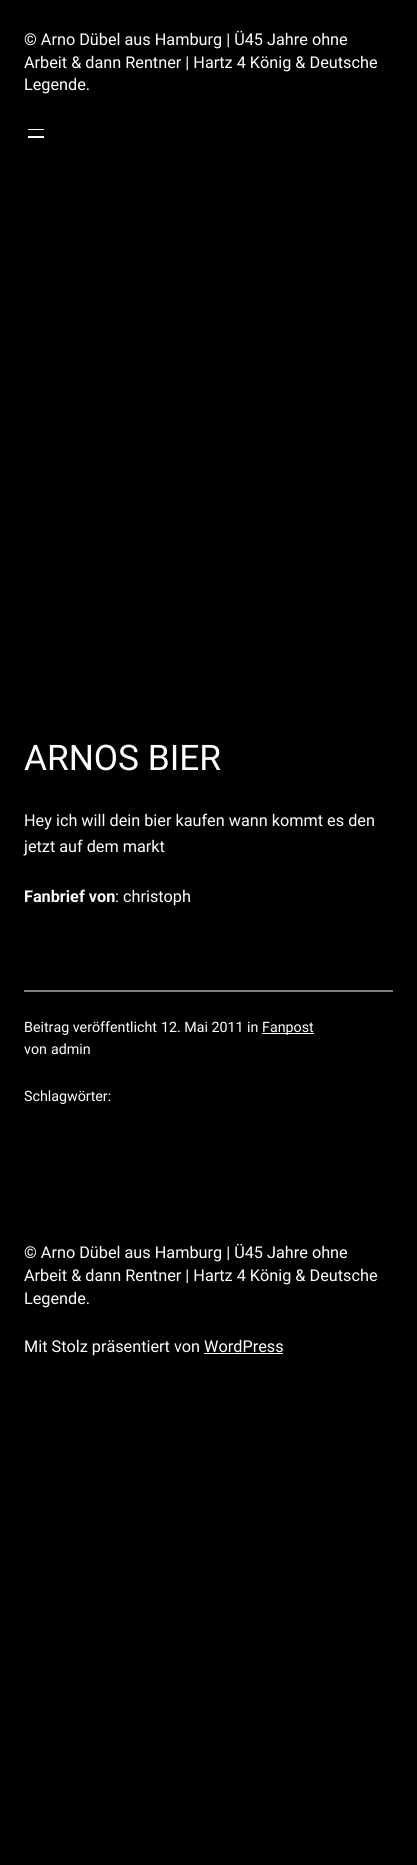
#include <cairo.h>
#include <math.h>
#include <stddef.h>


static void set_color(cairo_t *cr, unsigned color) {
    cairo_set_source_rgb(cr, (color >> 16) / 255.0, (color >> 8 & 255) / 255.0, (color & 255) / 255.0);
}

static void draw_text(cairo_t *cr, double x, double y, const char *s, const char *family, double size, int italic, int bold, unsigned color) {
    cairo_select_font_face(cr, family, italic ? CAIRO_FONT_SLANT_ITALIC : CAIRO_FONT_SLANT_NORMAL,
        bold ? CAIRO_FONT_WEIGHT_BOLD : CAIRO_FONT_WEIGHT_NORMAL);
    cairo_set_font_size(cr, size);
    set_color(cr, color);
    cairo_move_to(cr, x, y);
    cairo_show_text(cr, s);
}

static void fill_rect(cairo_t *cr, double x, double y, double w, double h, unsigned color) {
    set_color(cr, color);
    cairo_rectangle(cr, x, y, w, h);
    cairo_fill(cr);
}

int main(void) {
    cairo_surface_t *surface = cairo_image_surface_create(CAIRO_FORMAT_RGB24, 417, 1865);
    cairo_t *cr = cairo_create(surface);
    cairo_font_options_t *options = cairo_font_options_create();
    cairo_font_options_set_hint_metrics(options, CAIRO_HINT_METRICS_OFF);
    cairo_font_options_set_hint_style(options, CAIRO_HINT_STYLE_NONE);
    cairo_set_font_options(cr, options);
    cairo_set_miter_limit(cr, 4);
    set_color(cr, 0x000000);
    cairo_paint(cr);
    draw_text(cr, 24, 45, "© Arno Dübel aus Hamburg | Ü45 Jahre ohne", "Roboto", 16.25, 0, 0, 0xFFFFFF);
    draw_text(cr, 24, 68, "Arbeit & dann Rentner | Hartz 4 König & Deutsche", "Roboto", 16.25, 0, 0, 0xFFFFFF);
    draw_text(cr, 24, 90, "Legende.", "Roboto", 16.25, 0, 0, 0xFFFFFF);
    fill_rect(cr, 28, 129, 16, 1, 0xFFFFFF);
    fill_rect(cr, 28, 136, 16, 2, 0xFFFFFF);
    draw_text(cr, 24, 770, "ARNOS BIER", "Roboto", 35.25, 0, 0, 0xFFFFFF);
    draw_text(cr, 24, 826, "Hey ich will dein bier kaufen wann kommt es den", "Roboto", 16.25, 0, 0, 0xFFFFFF);
    draw_text(cr, 24, 852, "jetzt auf dem markt", "Roboto", 16.25, 0, 0, 0xFFFFFF);
    draw_text(cr, 24, 902, "Fanbrief von", "Roboto", 16.25, 0, 1, 0xFFFFFF);
    draw_text(cr, 115, 902, ": christoph", "Roboto", 16.25, 0, 0, 0xFFFFFF);
    fill_rect(cr, 24, 990, 369, 2, 0x808080);
    draw_text(cr, 24, 1032, "Beitrag veröffentlicht", "Roboto", 14.25, 0, 0, 0xFFFFFF);
    draw_text(cr, 161, 1032, "12. Mai 2011", "Roboto", 14.25, 0, 0, 0xFFFFFF);
    draw_text(cr, 247, 1032, "in", "Roboto", 14.25, 0, 0, 0xFFFFFF);
    fill_rect(cr, 262, 1033, 52, 1, 0xFFFFFF);
    draw_text(cr, 262, 1032, "Fanpost", "Roboto", 14.25, 0, 0, 0xFFFFFF);
    draw_text(cr, 24, 1054, "von", "Roboto", 14.25, 0, 0, 0xFFFFFF);
    draw_text(cr, 51, 1054, "admin", "Roboto", 14.25, 0, 0, 0xFFFFFF);
    draw_text(cr, 24, 1101, "Schlagwörter:", "Roboto", 14.25, 0, 0, 0xFFFFFF);
    draw_text(cr, 24, 1258, "© Arno Dübel aus Hamburg | Ü45 Jahre ohne", "Roboto", 16.25, 0, 0, 0xFFFFFF);
    draw_text(cr, 24, 1281, "Arbeit & dann Rentner | Hartz 4 König & Deutsche", "Roboto", 16.25, 0, 0, 0xFFFFFF);
    draw_text(cr, 24, 1304, "Legende.", "Roboto", 16.25, 0, 0, 0xFFFFFF);
    draw_text(cr, 24, 1352, "Mit Stolz präsentiert von WordPress", "Roboto", 16.25, 0, 0, 0xFFFFFF);
    fill_rect(cr, 204, 1353, 79, 1, 0xFFFFFF);
    cairo_surface_write_to_png(surface, "output.png");
    cairo_font_options_destroy(options);
    cairo_destroy(cr);
    cairo_surface_destroy(surface);
    return 0;
}
